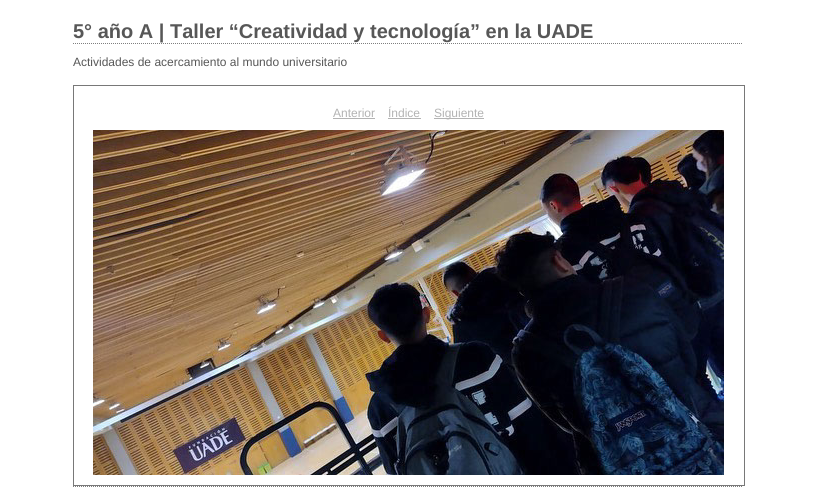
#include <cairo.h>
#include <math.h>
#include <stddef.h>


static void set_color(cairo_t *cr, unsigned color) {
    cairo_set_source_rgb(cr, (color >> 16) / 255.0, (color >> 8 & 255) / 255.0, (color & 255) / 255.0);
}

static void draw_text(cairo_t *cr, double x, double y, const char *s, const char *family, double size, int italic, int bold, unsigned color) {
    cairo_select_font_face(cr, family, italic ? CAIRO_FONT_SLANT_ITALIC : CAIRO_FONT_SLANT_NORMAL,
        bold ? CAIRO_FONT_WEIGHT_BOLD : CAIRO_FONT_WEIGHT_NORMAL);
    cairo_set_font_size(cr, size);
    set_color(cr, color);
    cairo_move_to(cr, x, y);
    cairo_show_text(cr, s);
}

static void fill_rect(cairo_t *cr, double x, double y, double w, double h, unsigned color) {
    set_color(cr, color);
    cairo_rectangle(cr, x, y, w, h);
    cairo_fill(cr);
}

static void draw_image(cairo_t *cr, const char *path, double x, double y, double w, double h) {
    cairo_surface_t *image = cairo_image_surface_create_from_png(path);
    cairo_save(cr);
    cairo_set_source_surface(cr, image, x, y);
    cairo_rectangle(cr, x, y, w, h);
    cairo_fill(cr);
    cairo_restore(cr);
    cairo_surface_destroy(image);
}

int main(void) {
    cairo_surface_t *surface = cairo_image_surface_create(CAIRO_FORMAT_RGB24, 815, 493);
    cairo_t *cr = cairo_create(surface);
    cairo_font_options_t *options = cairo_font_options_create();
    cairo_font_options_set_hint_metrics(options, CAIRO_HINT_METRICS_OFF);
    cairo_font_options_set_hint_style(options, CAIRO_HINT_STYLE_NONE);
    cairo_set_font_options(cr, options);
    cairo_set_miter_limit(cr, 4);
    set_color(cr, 0xFFFFFF);
    cairo_paint(cr);
    cairo_new_path(cr);
    cairo_move_to(cr, 73, 43.5);
    cairo_line_to(cr, 743, 43.5);
    set_color(cr, 0x7F7F7F);
    cairo_set_line_width(cr, 1);
    cairo_set_dash(cr, (double[]){1, 1}, 2, 0);
    cairo_stroke(cr);
    draw_text(cr, 73, 38, "5° año A | Taller “Creatividad y tecnología” en la UADE", "Liberation Sans", 20, 0, 1, 0x575757);
    draw_text(cr, 73, 66, "Actividades de acercamiento al mundo universitario", "Liberation Sans", 12, 0, 0, 0x575757);
    cairo_rectangle(cr, 73.5, 85.5, 671, 400);
    set_color(cr, 0x787878);
    cairo_set_dash(cr, NULL, 0, 0);
    cairo_stroke(cr);
    draw_text(cr, 333, 117, "Anterior", "Liberation Sans", 12, 0, 0, 0xB3B3B3);
    fill_rect(cr, 333, 118, 42, 1, 0xB3B3B3);
    draw_text(cr, 388, 117, "Índice", "Liberation Sans", 12, 0, 0, 0xB3B3B3);
    fill_rect(cr, 388, 118, 33, 1, 0xB3B3B3);
    fill_rect(cr, 434, 118, 50, 1, 0xB3B3B3);
    draw_text(cr, 434, 117, "Siguiente", "Liberation Sans", 12, 0, 0, 0xB3B3B3);
    draw_image(cr, "assets/img1.png", 93, 130, 631, 345);
    cairo_new_path(cr);
    cairo_move_to(cr, 73, 486.5);
    cairo_line_to(cr, 743, 486.5);
    set_color(cr, 0x7F7F7F);
    cairo_set_dash(cr, (double[]){1, 1}, 2, 0);
    cairo_stroke(cr);
    cairo_surface_write_to_png(surface, "output.png");
    cairo_font_options_destroy(options);
    cairo_destroy(cr);
    cairo_surface_destroy(surface);
    return 0;
}
